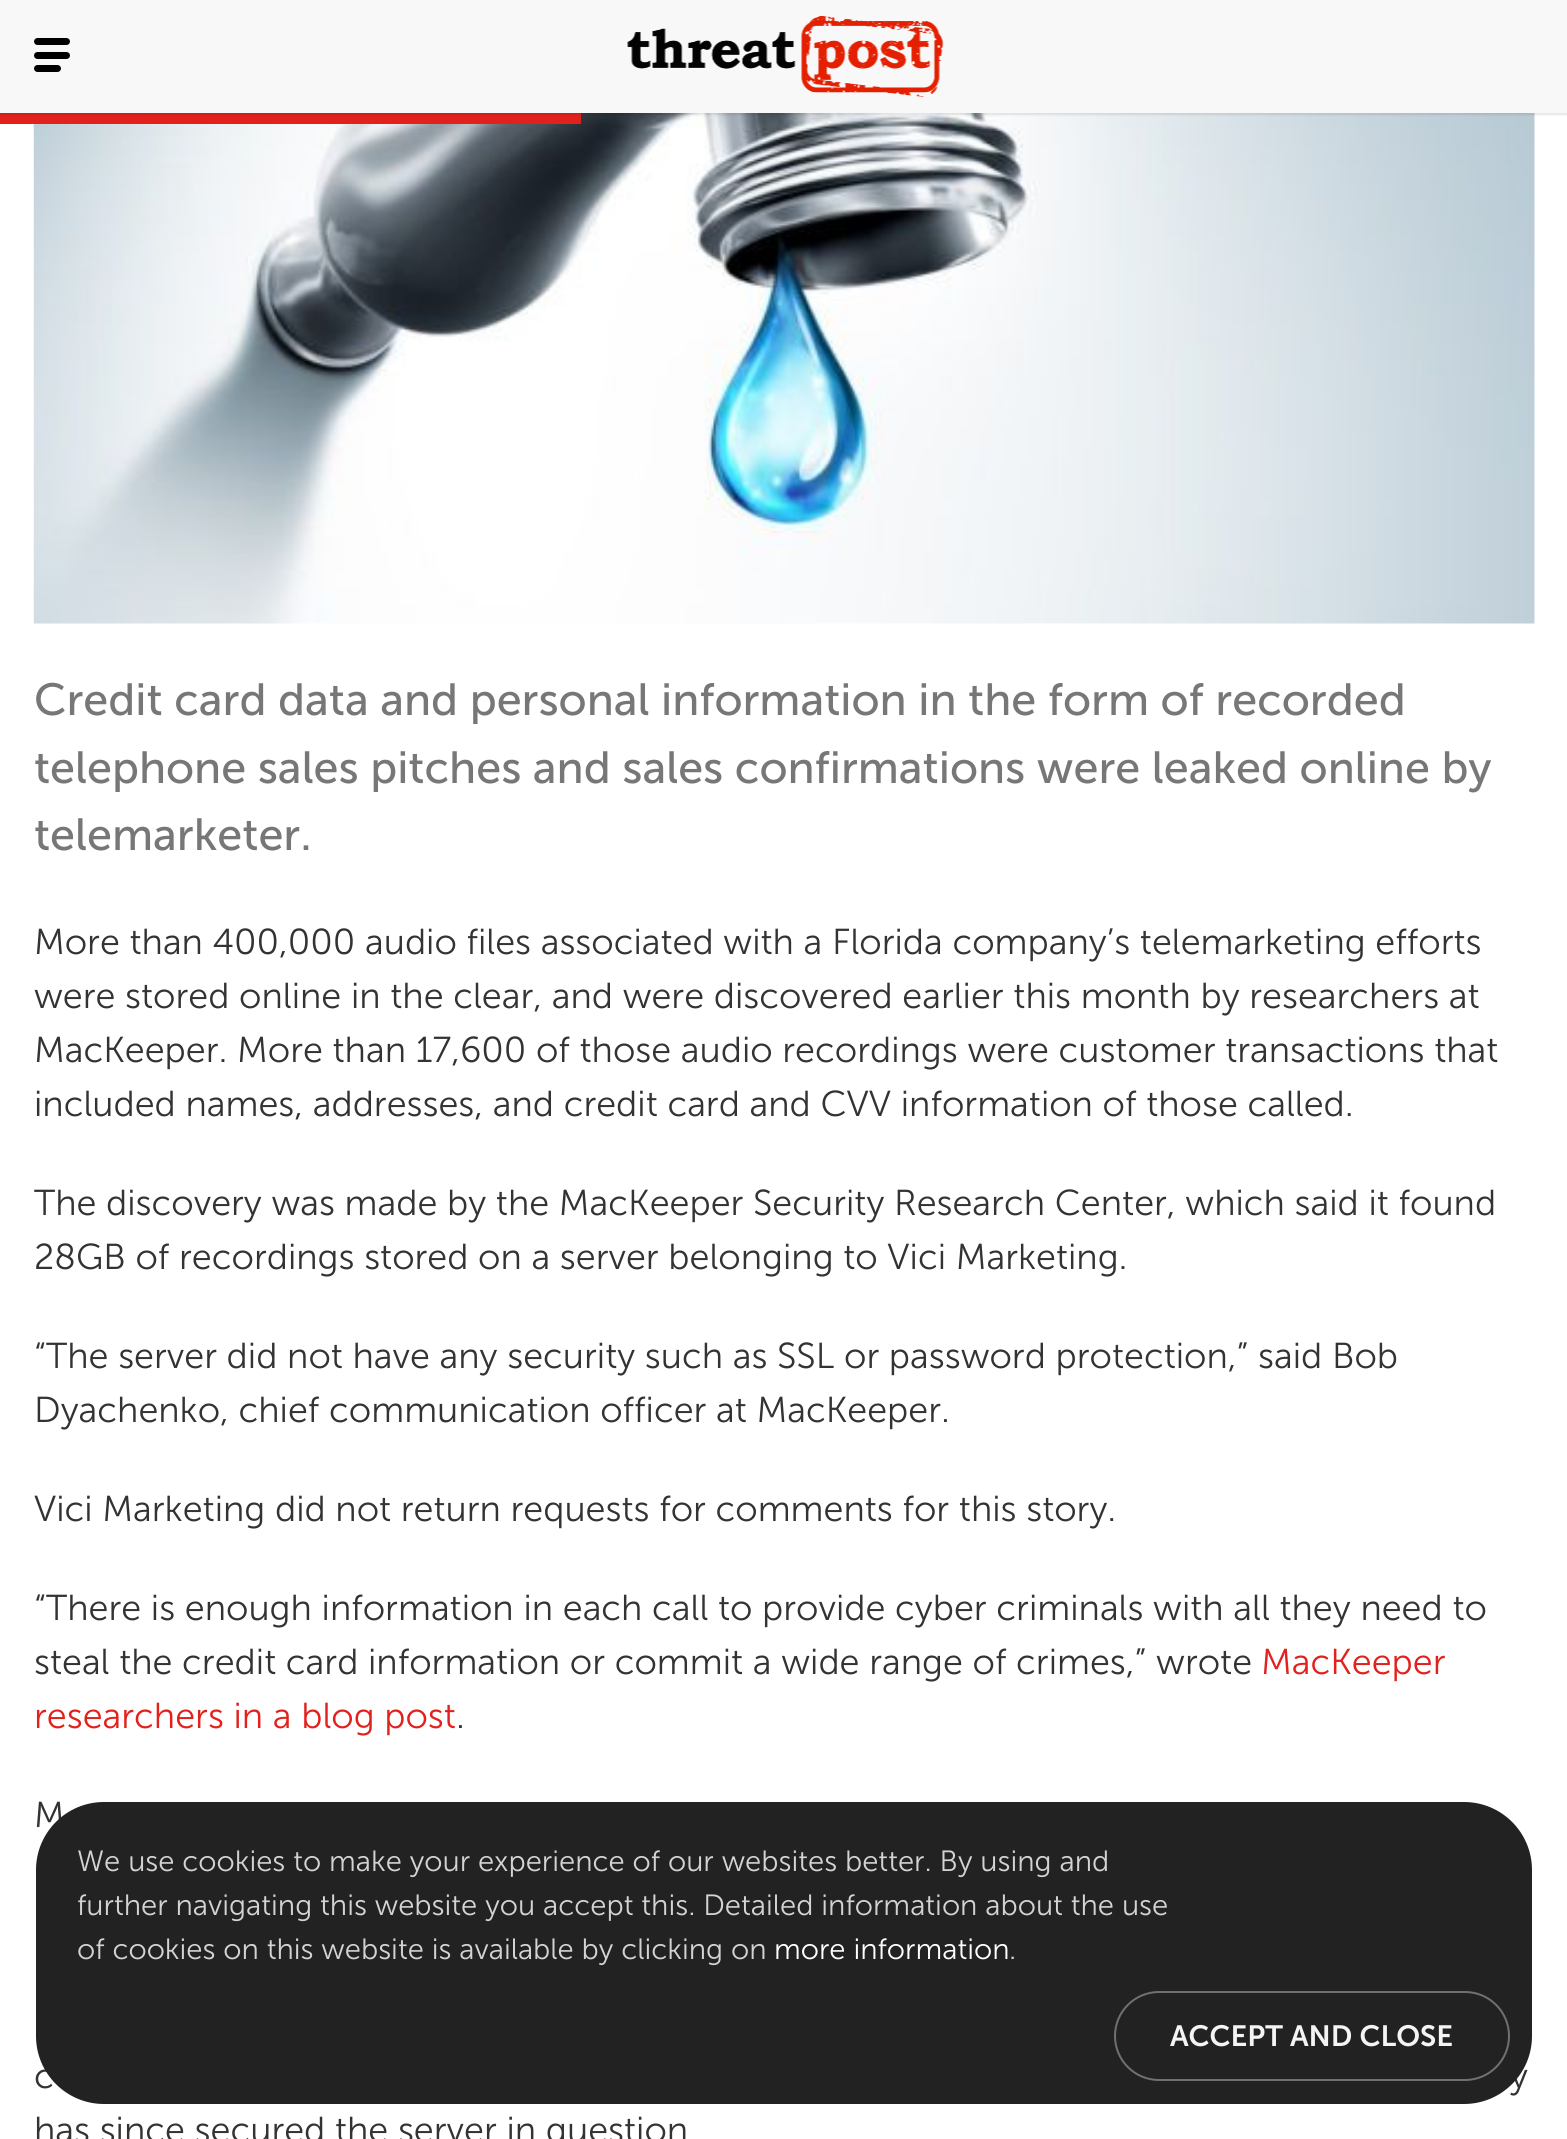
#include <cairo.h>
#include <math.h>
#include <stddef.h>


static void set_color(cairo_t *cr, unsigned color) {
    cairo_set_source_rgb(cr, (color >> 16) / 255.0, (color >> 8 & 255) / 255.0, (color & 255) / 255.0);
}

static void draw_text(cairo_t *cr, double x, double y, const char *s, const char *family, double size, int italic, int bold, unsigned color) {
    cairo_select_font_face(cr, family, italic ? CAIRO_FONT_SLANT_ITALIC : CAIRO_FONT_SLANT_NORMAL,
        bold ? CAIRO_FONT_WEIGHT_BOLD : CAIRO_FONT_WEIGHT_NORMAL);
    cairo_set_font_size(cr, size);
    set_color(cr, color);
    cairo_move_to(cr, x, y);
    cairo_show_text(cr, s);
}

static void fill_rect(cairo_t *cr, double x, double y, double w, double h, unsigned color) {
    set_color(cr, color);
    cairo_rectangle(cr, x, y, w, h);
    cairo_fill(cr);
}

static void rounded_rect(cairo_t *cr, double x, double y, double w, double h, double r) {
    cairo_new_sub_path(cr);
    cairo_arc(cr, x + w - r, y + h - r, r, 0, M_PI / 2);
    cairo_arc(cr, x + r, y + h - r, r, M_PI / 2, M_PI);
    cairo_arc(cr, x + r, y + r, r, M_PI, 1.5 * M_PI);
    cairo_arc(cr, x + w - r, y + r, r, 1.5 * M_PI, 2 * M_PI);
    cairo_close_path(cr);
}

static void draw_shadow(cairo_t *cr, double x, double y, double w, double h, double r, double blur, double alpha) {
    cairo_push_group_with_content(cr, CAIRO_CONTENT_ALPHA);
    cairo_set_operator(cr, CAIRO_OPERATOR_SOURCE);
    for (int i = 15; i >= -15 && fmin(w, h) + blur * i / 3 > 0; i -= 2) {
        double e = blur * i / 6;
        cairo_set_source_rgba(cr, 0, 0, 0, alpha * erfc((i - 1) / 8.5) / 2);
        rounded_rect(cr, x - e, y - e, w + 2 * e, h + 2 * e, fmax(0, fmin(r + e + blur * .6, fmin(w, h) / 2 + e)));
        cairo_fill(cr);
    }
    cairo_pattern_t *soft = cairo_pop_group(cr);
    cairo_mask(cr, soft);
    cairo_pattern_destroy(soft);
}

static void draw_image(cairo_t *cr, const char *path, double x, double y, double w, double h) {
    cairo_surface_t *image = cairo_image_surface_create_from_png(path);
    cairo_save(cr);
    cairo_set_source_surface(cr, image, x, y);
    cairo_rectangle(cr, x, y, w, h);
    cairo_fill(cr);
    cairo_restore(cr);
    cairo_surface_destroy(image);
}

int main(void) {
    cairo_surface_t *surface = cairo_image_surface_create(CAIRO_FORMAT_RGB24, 1567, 2139);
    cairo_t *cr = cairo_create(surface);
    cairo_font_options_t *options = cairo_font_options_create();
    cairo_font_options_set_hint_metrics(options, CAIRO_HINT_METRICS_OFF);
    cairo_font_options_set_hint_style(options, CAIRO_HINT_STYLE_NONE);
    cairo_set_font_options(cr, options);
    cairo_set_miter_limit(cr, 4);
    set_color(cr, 0xFFFFFF);
    cairo_paint(cr);
    draw_image(cr, "assets/img2.png", 33, 113, 1502, 511);
    fill_rect(cr, 0, 113, 581, 11, 0xE2211C);
    set_color(cr, 0x000000);
    draw_shadow(cr, 0, 2, 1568, 113, 0, 1, 0.1);
    fill_rect(cr, 0, 0, 1567, 113, 0xF8F8F8);
    set_color(cr, 0x000000);
    rounded_rect(cr, 34, 38, 36, 7, 3.5);
    cairo_fill(cr);
    rounded_rect(cr, 34, 52, 36, 7, 3.5);
    cairo_fill(cr);
    rounded_rect(cr, 34, 65, 27, 7, 3.5);
    cairo_fill(cr);
    draw_image(cr, "assets/img1.png", 627, 16, 317, 81);
    draw_text(cr, 34, 715, "Credit card data and personal information in the form of recorded", "Museo Sans", 45, 0, 0, 0x777777);
    draw_text(cr, 34, 783, "telephone sales pitches and sales confirmations were leaked online by", "Museo Sans", 45, 0, 0, 0x777777);
    draw_text(cr, 34, 850, "telemarketer.", "Museo Sans", 45, 0, 0, 0x777777);
    draw_text(cr, 34, 954, "More than 400,000 audio files associated with a Florida company’s telemarketing efforts", "Museo Sans Light", 36, 0, 0, 0x333333);
    draw_text(cr, 34, 1008, "were stored online in the clear, and were discovered earlier this month by researchers at", "Museo Sans Light", 36, 0, 0, 0x333333);
    draw_text(cr, 34, 1062, "MacKeeper. More than 17,600 of those audio recordings were customer transactions that", "Museo Sans Light", 36, 0, 0, 0x333333);
    draw_text(cr, 34, 1116, "included names, addresses, and credit card and CVV information of those called.", "Museo Sans Light", 36, 0, 0, 0x333333);
    draw_text(cr, 34, 1215, "The discovery was made by the MacKeeper Security Research Center, which said it found", "Museo Sans Light", 36, 0, 0, 0x333333);
    draw_text(cr, 34, 1269, "28GB of recordings stored on a server belonging to Vici Marketing.", "Museo Sans Light", 36, 0, 0, 0x333333);
    draw_text(cr, 34, 1368, "“The server did not have any security such as SSL or password protection,” said Bob", "Museo Sans Light", 36, 0, 0, 0x333333);
    draw_text(cr, 34, 1422, "Dyachenko, chief communication officer at MacKeeper.", "Museo Sans Light", 36, 0, 0, 0x333333);
    draw_text(cr, 34, 1521, "Vici Marketing did not return requests for comments for this story.", "Museo Sans Light", 36, 0, 0, 0x333333);
    draw_text(cr, 34, 1620, "“There is enough information in each call to provide cyber criminals with all they need to", "Museo Sans Light", 36, 0, 0, 0x333333);
    draw_text(cr, 34, 1674, "steal the credit card information or commit a wide range of crimes,” wrote", "Museo Sans Light", 36, 0, 0, 0x333333);
    draw_text(cr, 1261, 1674, "MacKeeper", "Museo Sans Light", 36, 0, 0, 0xE2211C);
    draw_text(cr, 34, 1728, "researchers in a blog post", "Museo Sans Light", 36, 0, 0, 0xE2211C);
    draw_text(cr, 456, 1728, ".", "Museo Sans Light", 36, 0, 0, 0x333333);
    draw_text(cr, 34, 1827, "M", "Museo Sans Light", 36, 0, 0, 0x333333);
    draw_text(cr, 34, 2088, "c", "Museo Sans Light", 36, 0, 0, 0x333333);
    draw_text(cr, 1510, 2088, "y", "Museo Sans Light", 36, 0, 0, 0x333333);
    draw_text(cr, 34, 2142, "has since secured the server in question", "Museo Sans Light", 36, 0, 0, 0x333333);
    set_color(cr, 0x222222);
    rounded_rect(cr, 36, 1802, 1496, 302, 68);
    cairo_fill(cr);
    draw_text(cr, 77, 1871, "We use cookies to make your experience of our websites better. By using and", "Museo Sans Light", 29.25, 0, 0, 0xD3D3D3);
    draw_text(cr, 77, 1915, "further navigating this website you accept this. Detailed information about the use", "Museo Sans Light", 29.25, 0, 0, 0xD3D3D3);
    draw_text(cr, 77, 1959, "of cookies on this website is available by clicking on", "Museo Sans Light", 29.25, 0, 0, 0xD3D3D3);
    draw_text(cr, 774, 1959, "more information", "Museo Sans Light", 29.25, 0, 0, 0xFFFFFF);
    draw_text(cr, 1009, 1959, ".", "Museo Sans Light", 29.25, 0, 0, 0xD3D3D3);
    rounded_rect(cr, 1115, 1992, 394, 88, 44);
    set_color(cr, 0x707070);
    cairo_stroke(cr);
    draw_text(cr, 1170, 2046, "ACCEPT AND CLOSE", "Museo Sans SemiBold", 29.25, 0, 0, 0xF4F4F4);
    cairo_surface_write_to_png(surface, "output.png");
    cairo_font_options_destroy(options);
    cairo_destroy(cr);
    cairo_surface_destroy(surface);
    return 0;
}
